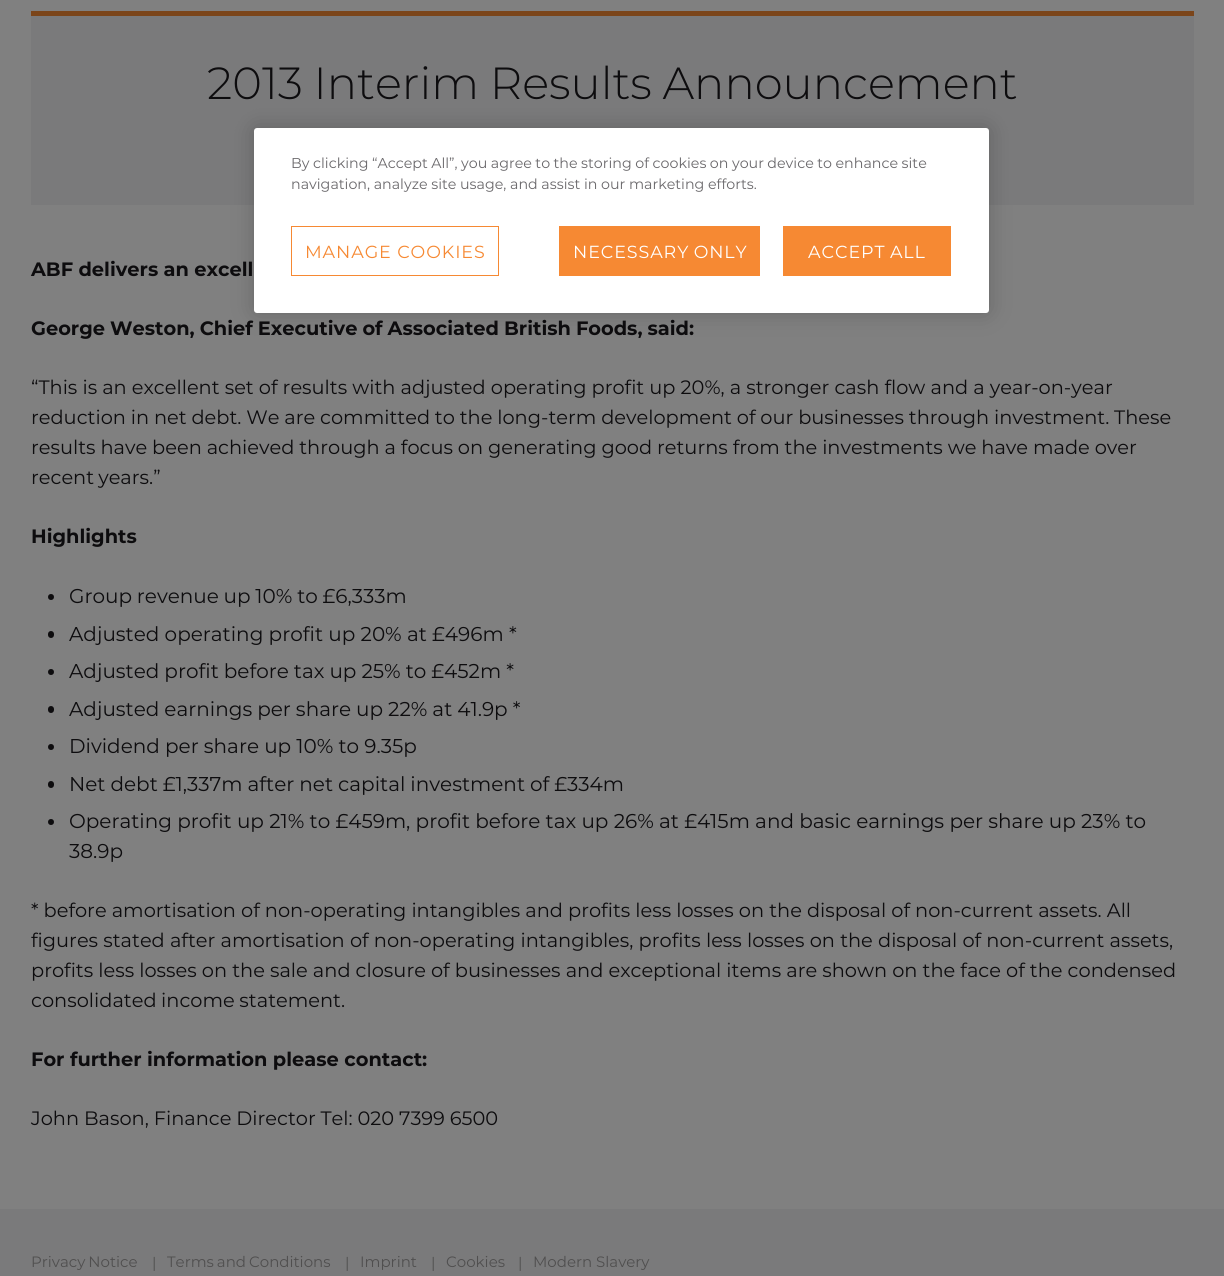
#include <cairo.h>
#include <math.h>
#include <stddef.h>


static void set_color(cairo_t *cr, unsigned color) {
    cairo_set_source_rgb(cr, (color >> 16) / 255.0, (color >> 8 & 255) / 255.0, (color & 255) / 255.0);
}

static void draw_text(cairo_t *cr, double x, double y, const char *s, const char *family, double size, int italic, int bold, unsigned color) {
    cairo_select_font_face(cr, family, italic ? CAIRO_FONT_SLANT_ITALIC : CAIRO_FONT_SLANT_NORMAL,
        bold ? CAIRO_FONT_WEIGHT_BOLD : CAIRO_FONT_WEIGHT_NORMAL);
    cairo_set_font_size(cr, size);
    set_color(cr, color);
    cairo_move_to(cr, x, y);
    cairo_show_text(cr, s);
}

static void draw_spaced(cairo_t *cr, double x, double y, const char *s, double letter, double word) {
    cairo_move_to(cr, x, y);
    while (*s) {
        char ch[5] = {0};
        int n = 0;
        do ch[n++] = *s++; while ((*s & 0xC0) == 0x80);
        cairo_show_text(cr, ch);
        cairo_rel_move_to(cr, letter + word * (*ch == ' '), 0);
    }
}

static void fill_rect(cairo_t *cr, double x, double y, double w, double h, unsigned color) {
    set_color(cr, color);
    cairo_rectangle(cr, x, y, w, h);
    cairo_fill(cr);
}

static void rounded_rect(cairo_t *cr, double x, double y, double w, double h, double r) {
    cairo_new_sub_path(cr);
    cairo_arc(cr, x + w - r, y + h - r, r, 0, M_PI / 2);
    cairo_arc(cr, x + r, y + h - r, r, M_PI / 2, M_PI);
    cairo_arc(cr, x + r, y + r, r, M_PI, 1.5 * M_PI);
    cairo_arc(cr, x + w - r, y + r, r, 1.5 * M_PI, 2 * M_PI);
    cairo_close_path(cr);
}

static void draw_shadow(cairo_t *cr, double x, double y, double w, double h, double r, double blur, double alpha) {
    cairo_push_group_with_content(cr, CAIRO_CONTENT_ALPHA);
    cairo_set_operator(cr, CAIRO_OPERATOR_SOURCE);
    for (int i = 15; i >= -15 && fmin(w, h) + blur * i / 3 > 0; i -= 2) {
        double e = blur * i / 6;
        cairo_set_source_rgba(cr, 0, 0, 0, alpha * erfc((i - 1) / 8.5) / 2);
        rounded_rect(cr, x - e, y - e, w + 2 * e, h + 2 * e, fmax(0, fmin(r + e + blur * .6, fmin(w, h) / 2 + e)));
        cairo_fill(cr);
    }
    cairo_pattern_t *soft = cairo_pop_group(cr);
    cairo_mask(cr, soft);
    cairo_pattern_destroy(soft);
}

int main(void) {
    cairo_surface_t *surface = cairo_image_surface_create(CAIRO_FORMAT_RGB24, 1224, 1276);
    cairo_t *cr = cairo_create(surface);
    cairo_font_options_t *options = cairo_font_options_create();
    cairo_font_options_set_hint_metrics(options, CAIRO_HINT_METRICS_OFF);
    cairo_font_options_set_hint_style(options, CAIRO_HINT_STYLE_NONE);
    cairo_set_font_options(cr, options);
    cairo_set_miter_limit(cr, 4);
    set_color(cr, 0x808080);
    cairo_paint(cr);
    fill_rect(cr, 31, 16, 1163, 189, 0x7A7A7B);
    fill_rect(cr, 31, 11, 1163, 5, 0x7B451A);
    cairo_select_font_face(cr, "Montserrat Light", CAIRO_FONT_SLANT_NORMAL, CAIRO_FONT_WEIGHT_NORMAL);
    cairo_set_font_size(cr, 45);
    set_color(cr, 0x0D0C0E);
    draw_spaced(cr, 207, 99, "2013 Interim Results Announcement", 0, -1);
    cairo_select_font_face(cr, "Montserrat", CAIRO_FONT_SLANT_NORMAL, CAIRO_FONT_WEIGHT_BOLD);
    cairo_set_font_size(cr, 19.38);
    draw_spaced(cr, 31, 276, "ABF delivers an excell", 0, -0.1);
    draw_spaced(cr, 31, 335, "George Weston, Chief Executive of Associated British Foods, said:", 0, -0.5);
    draw_text(cr, 31, 394, "“This is an excellent set of results with adjusted operating profit up 20%, a stronger cash flow and a year-on-year", "Montserrat", 19.38, 0, 0, 0x0D0C0E);
    draw_spaced(cr, 31, 424, "reduction in net debt. We are committed to the long-term development of our businesses through investment. These", 0, -0.25);
    draw_spaced(cr, 31, 454, "results have been achieved through a focus on generating good returns from the investments we have made over", 0, -0.2);
    draw_spaced(cr, 31, 484, "recent years.”", 0, -1);
    draw_text(cr, 31, 543, "Highlights", "Montserrat", 19.38, 0, 1, 0x0D0C0E);
    cairo_new_path(cr);
    cairo_arc(cr, 51, 597, 3, 0, 2 * M_PI);
    cairo_fill(cr);
    cairo_select_font_face(cr, "Montserrat", CAIRO_FONT_SLANT_NORMAL, CAIRO_FONT_WEIGHT_NORMAL);
    cairo_set_font_size(cr, 20);
    draw_spaced(cr, 69, 603, "Group revenue up 10% to £6,333m", 0, -0.5);
    rounded_rect(cr, 48, 631, 6, 7, 3);
    cairo_fill(cr);
    draw_text(cr, 69, 641, "Adjusted operating profit up 20% at £496m *", "Montserrat", 20, 0, 0, 0x0D0C0E);
    cairo_new_path(cr);
    cairo_arc(cr, 51, 672, 3, 0, 2 * M_PI);
    cairo_fill(cr);
    draw_spaced(cr, 69, 678, "Adjusted profit before tax up 25% to £452m *", 0, -0.25);
    rounded_rect(cr, 48, 706, 6, 7, 3);
    cairo_fill(cr);
    draw_spaced(cr, 69, 716, "Adjusted earnings per share up 22% at 41.9p *", 0, -0.25);
    cairo_new_path(cr);
    cairo_arc(cr, 51, 747, 3, 0, 2 * M_PI);
    cairo_fill(cr);
    draw_spaced(cr, 69, 753, "Dividend per share up 10% to 9.35p", 0, -0.1);
    rounded_rect(cr, 48, 781, 6, 7, 3);
    cairo_fill(cr);
    draw_spaced(cr, 69, 791, "Net debt £1,337m after net capital investment of £334m", 0, -0.25);
    cairo_new_path(cr);
    cairo_arc(cr, 51, 822, 3, 0, 2 * M_PI);
    cairo_fill(cr);
    draw_text(cr, 69, 828, "Operating profit up 21% to £459m, profit before tax up 26% at £415m and basic earnings per share up 23% to", "Montserrat", 20, 0, 0, 0x0D0C0E);
    draw_text(cr, 69, 858, "38.9p", "Montserrat", 20, 0, 0, 0x0D0C0E);
    draw_text(cr, 31, 917, "* before amortisation of non-operating intangibles and profits less losses on the disposal of non-current assets. All", "Montserrat", 19.38, 0, 0, 0x0D0C0E);
    draw_spaced(cr, 31, 947, "figures stated after amortisation of non-operating intangibles, profits less losses on the disposal of non-current assets,", 0, 0.1);
    draw_text(cr, 31, 977, "profits less losses on the sale and closure of businesses and exceptional items are shown on the face of the condensed", "Montserrat", 19.38, 0, 0, 0x0D0C0E);
    draw_spaced(cr, 31, 1007, "consolidated income statement.", 0, -0.5);
    draw_text(cr, 31, 1066, "For further information please contact:", "Montserrat", 19.38, 0, 1, 0x0D0C0E);
    cairo_select_font_face(cr, "Montserrat", CAIRO_FONT_SLANT_NORMAL, CAIRO_FONT_WEIGHT_NORMAL);
    draw_spaced(cr, 31, 1125, "John Bason, Finance Director Tel: 020 7399 6500", 0, -0.25);
    set_color(cr, 0x000000);
    draw_shadow(cr, 254, 128, 735, 185, 3, 11, 0.2);
    set_color(cr, 0xFFFFFF);
    rounded_rect(cr, 254, 128, 735, 185, 3);
    cairo_fill(cr);
    cairo_set_font_size(cr, 14.25);
    set_color(cr, 0x6A686B);
    draw_spaced(cr, 291, 168, "By clicking “Accept All”, you agree to the storing of cookies on your device to enhance site", 0, -0.25);
    draw_spaced(cr, 291, 189, "navigation, analyze site usage, and assist in our marketing efforts.", 0, -0.1);
    cairo_rectangle(cr, 291.5, 226.5, 207, 49);
    set_color(cr, 0xF68933);
    cairo_set_line_width(cr, 1);
    cairo_stroke(cr);
    cairo_set_font_size(cr, 17.5);
    draw_spaced(cr, 305, 258, "MANAGE COOKIES", 0.9, 0);
    fill_rect(cr, 559, 226, 201, 50, 0xF68933);
    set_color(cr, 0xFFFFFF);
    draw_spaced(cr, 573, 258, "NECESSARY ONLY", 0.9, -1);
    fill_rect(cr, 783, 226, 168, 50, 0xF68933);
    set_color(cr, 0xFFFFFF);
    draw_spaced(cr, 808, 258, "ACCEPT ALL", 0.9, -1);
    fill_rect(cr, 0, 1209, 1224, 67, 0x7A7A7B);
    cairo_set_font_size(cr, 15);
    set_color(cr, 0x504F4F);
    draw_spaced(cr, 31, 1267, "Privacy Notice", 0, -1);
    draw_text(cr, 152, 1268, "|", "Montserrat", 15, 0, 0, 0x504F4F);
    draw_spaced(cr, 167, 1267, "Terms and Conditions", 0, -1);
    draw_text(cr, 345, 1268, "|", "Montserrat", 15, 0, 0, 0x504F4F);
    draw_text(cr, 360, 1267, "Imprint", "Montserrat", 15, 0, 0, 0x504F4F);
    draw_text(cr, 431, 1268, "|", "Montserrat", 15, 0, 0, 0x504F4F);
    draw_text(cr, 446, 1267, "Cookies", "Montserrat", 15, 0, 0, 0x504F4F);
    draw_text(cr, 518, 1268, "|", "Montserrat", 15, 0, 0, 0x504F4F);
    draw_text(cr, 533, 1267, "Modern Slavery", "Montserrat", 15, 0, 0, 0x504F4F);
    cairo_surface_write_to_png(surface, "output.png");
    cairo_font_options_destroy(options);
    cairo_destroy(cr);
    cairo_surface_destroy(surface);
    return 0;
}
